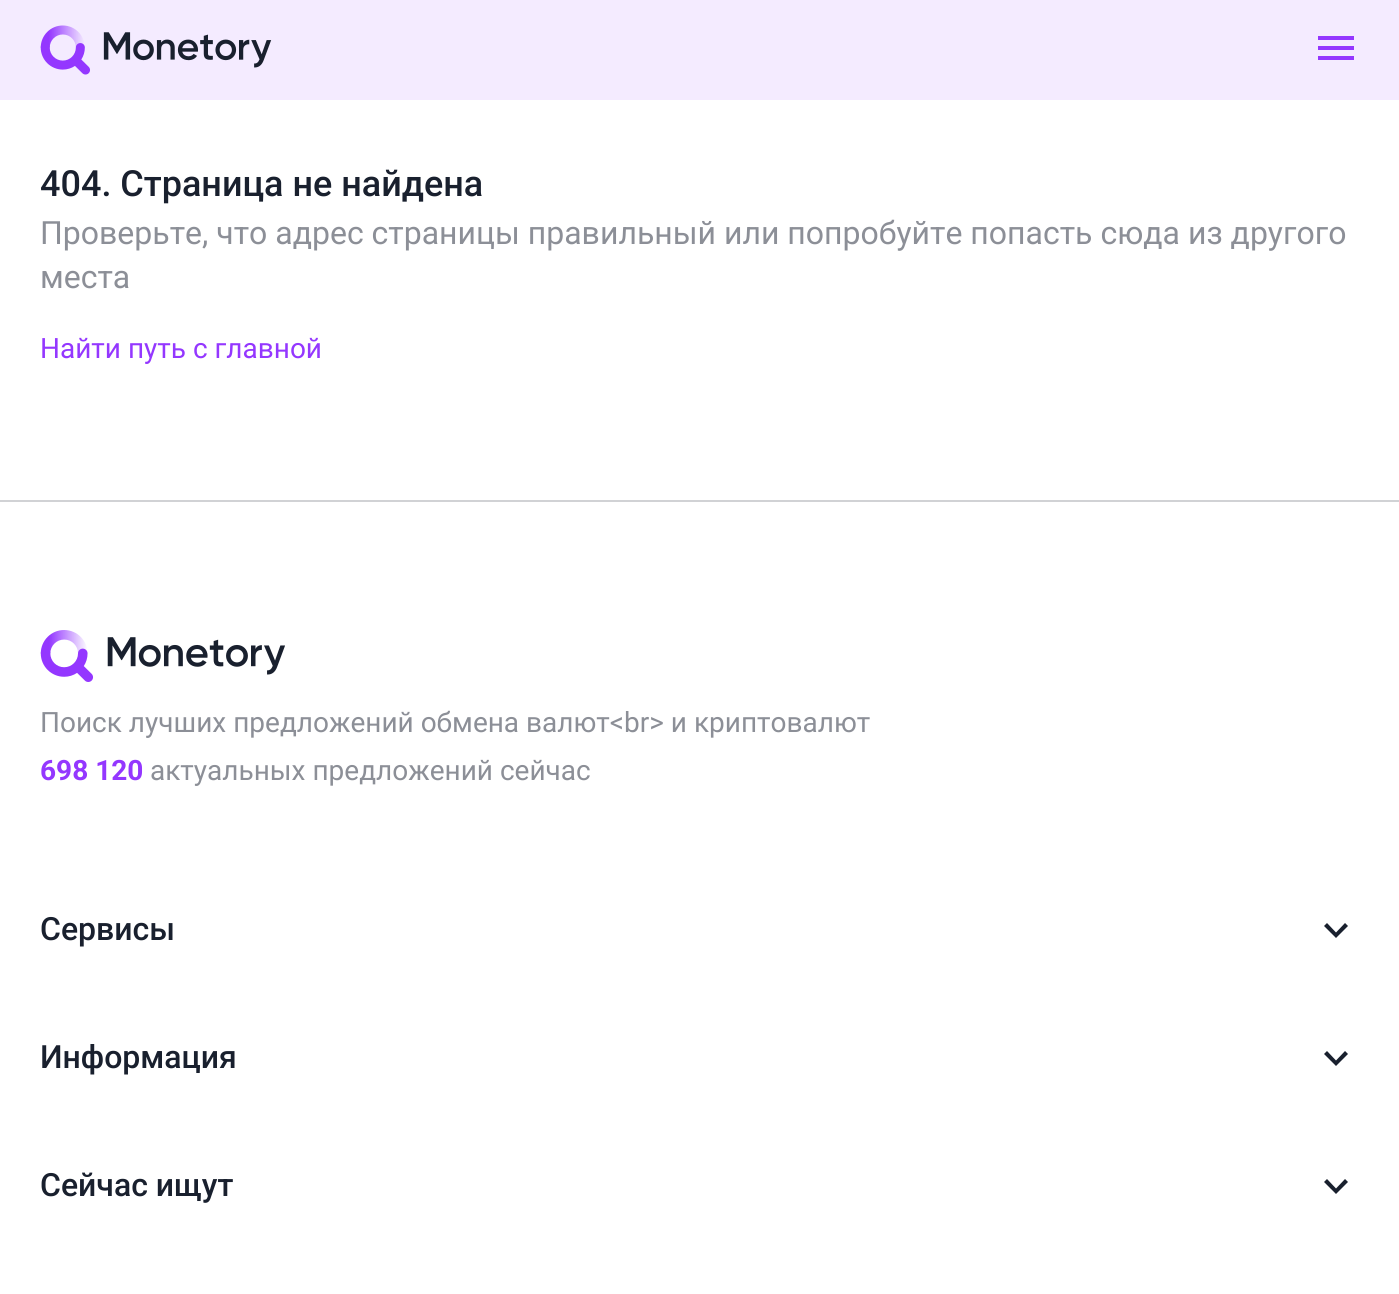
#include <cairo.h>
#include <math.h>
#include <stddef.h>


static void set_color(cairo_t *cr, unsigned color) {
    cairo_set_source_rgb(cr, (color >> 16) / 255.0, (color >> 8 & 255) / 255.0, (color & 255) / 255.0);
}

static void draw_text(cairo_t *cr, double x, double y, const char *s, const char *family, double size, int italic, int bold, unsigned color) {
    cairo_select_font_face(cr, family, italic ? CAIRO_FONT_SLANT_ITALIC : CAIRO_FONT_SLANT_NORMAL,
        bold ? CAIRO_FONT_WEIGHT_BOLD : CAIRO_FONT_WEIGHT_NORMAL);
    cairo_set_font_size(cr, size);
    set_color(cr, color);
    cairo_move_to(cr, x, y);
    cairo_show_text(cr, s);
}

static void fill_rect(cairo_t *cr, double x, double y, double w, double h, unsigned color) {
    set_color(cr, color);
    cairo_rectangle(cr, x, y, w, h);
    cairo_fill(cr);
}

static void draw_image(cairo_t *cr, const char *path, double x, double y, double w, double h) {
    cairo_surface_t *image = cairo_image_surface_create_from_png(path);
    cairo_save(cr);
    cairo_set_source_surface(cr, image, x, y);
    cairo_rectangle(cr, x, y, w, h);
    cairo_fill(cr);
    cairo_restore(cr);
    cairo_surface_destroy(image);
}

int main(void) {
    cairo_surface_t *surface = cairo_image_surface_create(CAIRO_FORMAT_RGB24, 1399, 1294);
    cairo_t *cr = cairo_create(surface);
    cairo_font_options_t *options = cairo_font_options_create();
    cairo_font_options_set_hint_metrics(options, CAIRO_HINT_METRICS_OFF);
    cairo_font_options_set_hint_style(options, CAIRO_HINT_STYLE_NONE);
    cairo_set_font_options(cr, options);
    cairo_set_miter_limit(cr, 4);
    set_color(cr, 0xFFFFFF);
    cairo_paint(cr);
    fill_rect(cr, 0, 0, 1399, 100, 0xF4EBFF);
    draw_image(cr, "assets/img1.png", 40, 25, 232, 50);
    set_color(cr, 0x9437FF);
    cairo_new_path(cr);
    cairo_move_to(cr, 1318, 36);
    cairo_line_to(cr, 1354, 36);
    cairo_line_to(cr, 1354, 40);
    cairo_line_to(cr, 1318, 40);
    cairo_close_path(cr);
    cairo_move_to(cr, 1318, 46);
    cairo_line_to(cr, 1354, 46);
    cairo_line_to(cr, 1354, 50);
    cairo_line_to(cr, 1318, 50);
    cairo_close_path(cr);
    cairo_move_to(cr, 1318, 56);
    cairo_line_to(cr, 1354, 56);
    cairo_line_to(cr, 1354, 60);
    cairo_line_to(cr, 1318, 60);
    cairo_close_path(cr);
    cairo_fill(cr);
    draw_text(cr, 40, 196, "404. Страница не найдена", "Roboto Medium", 36, 0, 0, 0x19202E);
    draw_text(cr, 40, 244, "Проверьте, что адрес страницы правильный или попробуйте попасть сюда из другого", "Roboto", 32, 0, 0, 0x8C8F97);
    draw_text(cr, 40, 288, "места", "Roboto", 32, 0, 0, 0x8C8F97);
    draw_text(cr, 40, 358, "Найти путь с главной", "Roboto", 28, 0, 0, 0x9437FF);
    fill_rect(cr, 0, 500, 1399, 2, 0xD1D2D5);
    draw_image(cr, "assets/img2.png", 40, 630, 245, 52);
    draw_text(cr, 40, 732, "Поиск лучших предложений обмена валют<br> и криптовалют", "Roboto", 28, 0, 0, 0x8C8F97);
    draw_text(cr, 40, 780, "698 120", "Roboto", 28, 0, 1, 0x9437FF);
    draw_text(cr, 150, 780, "актуальных предложений сейчас", "Roboto", 28, 0, 0, 0x8C8F97);
    draw_text(cr, 40, 940, "Сервисы", "Roboto Medium", 32, 0, 0, 0x19202E);
    cairo_new_path(cr);
    cairo_move_to(cr, 1327, 923);
    cairo_line_to(cr, 1336, 932.5);
    cairo_line_to(cr, 1345, 923);
    cairo_line_to(cr, 1348, 926);
    cairo_line_to(cr, 1336, 938);
    cairo_line_to(cr, 1324, 926);
    cairo_close_path(cr);
    cairo_fill(cr);
    draw_text(cr, 40, 1068, "Информация", "Roboto Medium", 32, 0, 0, 0x19202E);
    cairo_new_path(cr);
    cairo_move_to(cr, 1327, 1051);
    cairo_line_to(cr, 1336, 1060.5);
    cairo_line_to(cr, 1345, 1051);
    cairo_line_to(cr, 1348, 1054);
    cairo_line_to(cr, 1336, 1066);
    cairo_line_to(cr, 1324, 1054);
    cairo_close_path(cr);
    cairo_fill(cr);
    draw_text(cr, 40, 1196, "Сейчас ищут", "Roboto Medium", 32, 0, 0, 0x19202E);
    cairo_new_path(cr);
    cairo_move_to(cr, 1327, 1179);
    cairo_line_to(cr, 1336, 1188.5);
    cairo_line_to(cr, 1345, 1179);
    cairo_line_to(cr, 1348, 1182);
    cairo_line_to(cr, 1336, 1194);
    cairo_line_to(cr, 1324, 1182);
    cairo_close_path(cr);
    cairo_fill(cr);
    cairo_surface_write_to_png(surface, "output.png");
    cairo_font_options_destroy(options);
    cairo_destroy(cr);
    cairo_surface_destroy(surface);
    return 0;
}
